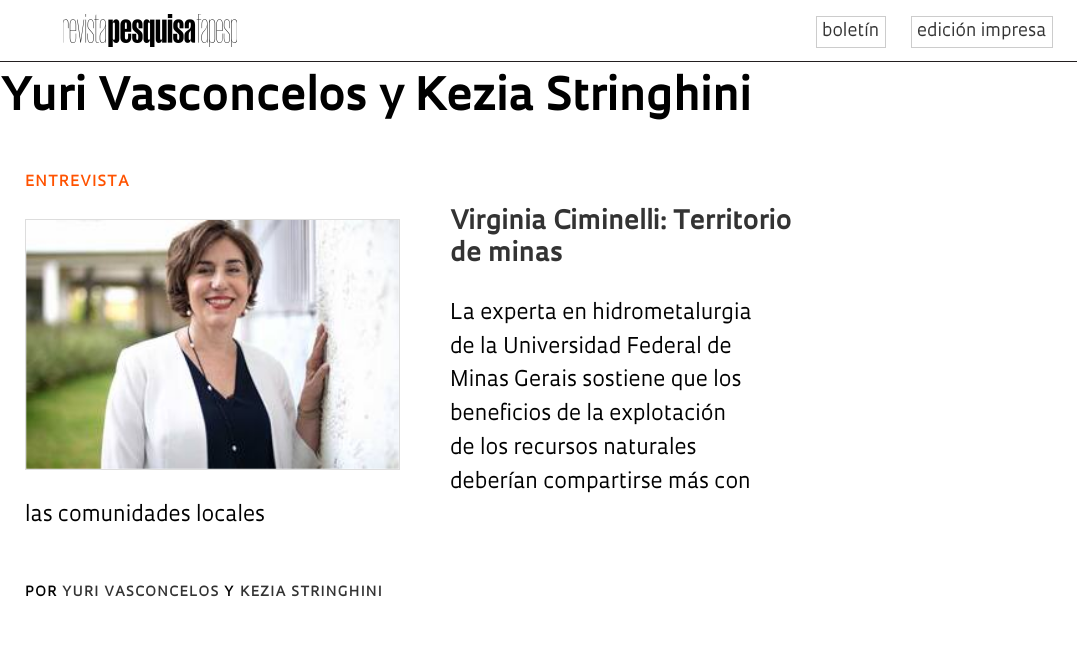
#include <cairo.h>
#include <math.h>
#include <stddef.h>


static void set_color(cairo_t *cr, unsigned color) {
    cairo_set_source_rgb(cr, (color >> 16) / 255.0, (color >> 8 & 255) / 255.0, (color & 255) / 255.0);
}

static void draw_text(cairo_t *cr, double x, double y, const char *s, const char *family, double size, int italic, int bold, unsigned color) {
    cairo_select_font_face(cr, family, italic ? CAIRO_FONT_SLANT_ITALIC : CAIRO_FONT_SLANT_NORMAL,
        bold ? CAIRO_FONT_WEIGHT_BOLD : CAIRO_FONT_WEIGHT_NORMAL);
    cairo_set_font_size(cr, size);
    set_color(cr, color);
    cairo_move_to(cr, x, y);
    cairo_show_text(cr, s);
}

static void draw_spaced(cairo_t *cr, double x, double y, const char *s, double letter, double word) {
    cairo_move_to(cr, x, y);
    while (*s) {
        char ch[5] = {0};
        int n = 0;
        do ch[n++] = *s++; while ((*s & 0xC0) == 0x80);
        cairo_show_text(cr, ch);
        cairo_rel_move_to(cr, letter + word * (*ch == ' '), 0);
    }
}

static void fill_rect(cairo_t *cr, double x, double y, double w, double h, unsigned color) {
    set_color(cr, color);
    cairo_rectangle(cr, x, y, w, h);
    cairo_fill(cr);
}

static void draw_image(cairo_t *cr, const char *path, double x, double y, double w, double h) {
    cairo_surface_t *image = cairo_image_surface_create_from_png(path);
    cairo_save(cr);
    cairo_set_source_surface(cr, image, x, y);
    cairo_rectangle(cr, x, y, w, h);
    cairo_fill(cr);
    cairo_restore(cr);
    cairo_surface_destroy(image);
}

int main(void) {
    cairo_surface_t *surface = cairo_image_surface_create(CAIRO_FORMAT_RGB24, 1077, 658);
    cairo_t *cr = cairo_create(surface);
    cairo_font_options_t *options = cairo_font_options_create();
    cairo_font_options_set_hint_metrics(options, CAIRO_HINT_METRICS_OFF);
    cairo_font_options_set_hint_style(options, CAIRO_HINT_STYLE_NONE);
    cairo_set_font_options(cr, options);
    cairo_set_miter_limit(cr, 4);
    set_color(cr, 0xFFFFFF);
    cairo_paint(cr);
    fill_rect(cr, 0, 61, 1077, 1, 0x231F20);
    draw_image(cr, "assets/img1.png", 63, 14, 174, 33);
    cairo_rectangle(cr, 816.5, 16.5, 69, 31);
    set_color(cr, 0xCCCCCC);
    cairo_set_line_width(cr, 1);
    cairo_stroke(cr);
    draw_text(cr, 822, 36, "boletín", "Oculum", 17.5, 0, 0, 0x333333);
    cairo_rectangle(cr, 911.5, 16.5, 141, 31);
    set_color(cr, 0xCCCCCC);
    cairo_stroke(cr);
    draw_text(cr, 917, 36, "edición impresa", "Oculum", 17.5, 0, 0, 0x333333);
    draw_text(cr, 0, 110, "Yuri Vasconcelos y Kezia Stringhini", "Oculum", 45, 0, 1, 0x000000);
    cairo_select_font_face(cr, "Oculum SemiBold", CAIRO_FONT_SLANT_NORMAL, CAIRO_FONT_WEIGHT_NORMAL);
    cairo_set_font_size(cr, 15);
    set_color(cr, 0xFF5200);
    draw_spaced(cr, 25, 186, "ENTREVISTA", 1.25, 0);
    cairo_rectangle(cr, 25.5, 219.5, 374, 250);
    set_color(cr, 0xDDDDDD);
    cairo_stroke(cr);
    draw_image(cr, "assets/img2.png", 26, 220, 373, 249);
    draw_text(cr, 450, 229, "Virginia Ciminelli: Territorio", "Oculum", 26.25, 0, 1, 0x333333);
    draw_text(cr, 450, 261, "de minas", "Oculum", 26.25, 0, 1, 0x333333);
    draw_text(cr, 450, 319, "La experta en hidrometalurgia", "Oculum", 21.25, 0, 0, 0x000000);
    draw_text(cr, 450, 353, "de la Universidad Federal de", "Oculum", 21.25, 0, 0, 0x000000);
    draw_text(cr, 450, 386, "Minas Gerais sostiene que los", "Oculum", 21.25, 0, 0, 0x000000);
    draw_text(cr, 450, 420, "beneficios de la explotación", "Oculum", 21.25, 0, 0, 0x000000);
    draw_text(cr, 450, 454, "de los recursos naturales", "Oculum", 21.25, 0, 0, 0x000000);
    draw_text(cr, 450, 488, "deberían compartirse más con", "Oculum", 21.25, 0, 0, 0x000000);
    draw_text(cr, 25, 521, "las comunidades locales", "Oculum", 21.25, 0, 0, 0x000000);
    cairo_select_font_face(cr, "Oculum SemiBold", CAIRO_FONT_SLANT_NORMAL, CAIRO_FONT_WEIGHT_NORMAL);
    cairo_set_font_size(cr, 13.75);
    draw_spaced(cr, 25, 596, "POR", 1.25, 0);
    set_color(cr, 0x333333);
    draw_spaced(cr, 62, 596, "YURI VASCONCELOS", 1.25, 0);
    set_color(cr, 0x000000);
    draw_spaced(cr, 224, 596, "Y", 1.25, 0);
    set_color(cr, 0x333333);
    draw_spaced(cr, 240, 596, "KEZIA STRINGHINI", 1.25, 0);
    cairo_surface_write_to_png(surface, "output.png");
    cairo_font_options_destroy(options);
    cairo_destroy(cr);
    cairo_surface_destroy(surface);
    return 0;
}
